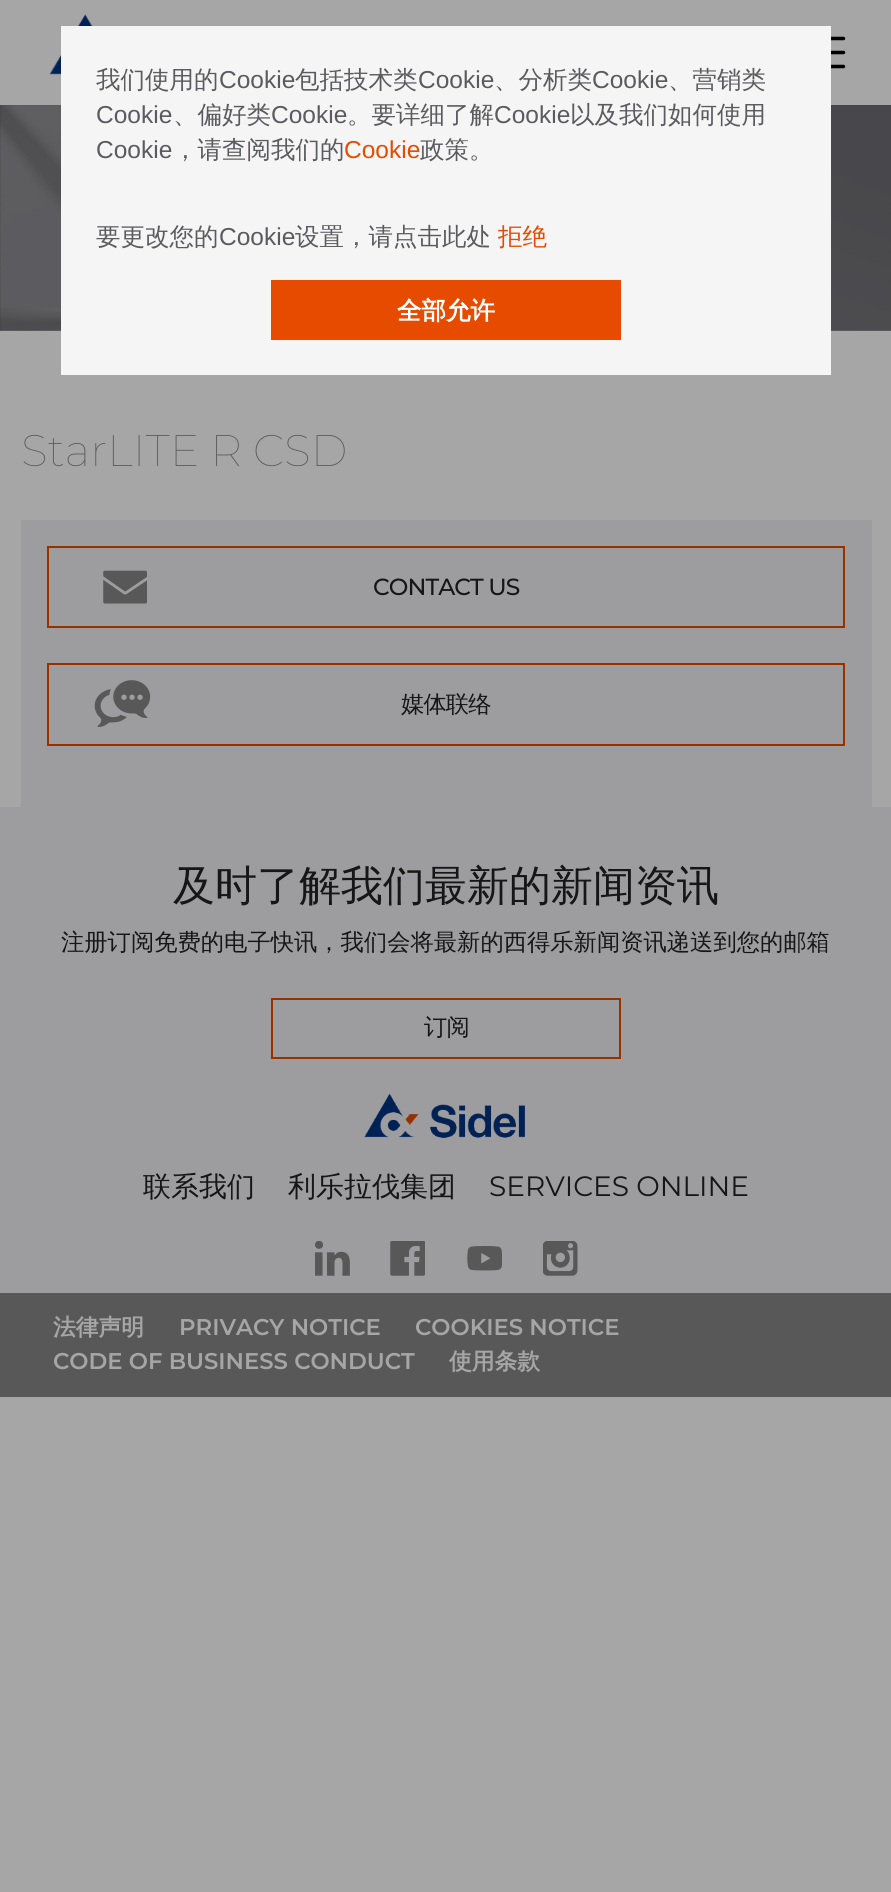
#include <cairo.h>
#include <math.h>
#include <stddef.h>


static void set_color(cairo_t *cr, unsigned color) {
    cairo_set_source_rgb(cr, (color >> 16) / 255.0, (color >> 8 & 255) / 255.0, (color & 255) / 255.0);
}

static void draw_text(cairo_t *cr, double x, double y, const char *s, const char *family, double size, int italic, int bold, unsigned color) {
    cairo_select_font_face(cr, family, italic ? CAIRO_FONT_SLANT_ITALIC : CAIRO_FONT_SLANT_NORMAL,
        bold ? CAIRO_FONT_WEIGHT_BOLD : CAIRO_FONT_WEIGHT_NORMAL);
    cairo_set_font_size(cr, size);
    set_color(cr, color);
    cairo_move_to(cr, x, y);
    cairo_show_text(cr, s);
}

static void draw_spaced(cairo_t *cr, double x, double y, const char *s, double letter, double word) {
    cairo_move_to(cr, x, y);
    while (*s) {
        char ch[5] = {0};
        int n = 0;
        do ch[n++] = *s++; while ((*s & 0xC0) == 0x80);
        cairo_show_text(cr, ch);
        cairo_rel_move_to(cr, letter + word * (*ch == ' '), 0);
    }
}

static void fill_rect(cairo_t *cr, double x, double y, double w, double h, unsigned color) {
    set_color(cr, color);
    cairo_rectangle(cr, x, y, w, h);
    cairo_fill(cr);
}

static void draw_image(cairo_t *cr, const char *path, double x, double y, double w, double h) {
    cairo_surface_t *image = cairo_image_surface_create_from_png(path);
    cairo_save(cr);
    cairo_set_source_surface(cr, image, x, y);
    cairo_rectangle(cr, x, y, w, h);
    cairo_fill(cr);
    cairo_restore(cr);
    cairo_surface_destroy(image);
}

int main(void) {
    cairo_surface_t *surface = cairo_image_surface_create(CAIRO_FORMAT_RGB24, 891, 1892);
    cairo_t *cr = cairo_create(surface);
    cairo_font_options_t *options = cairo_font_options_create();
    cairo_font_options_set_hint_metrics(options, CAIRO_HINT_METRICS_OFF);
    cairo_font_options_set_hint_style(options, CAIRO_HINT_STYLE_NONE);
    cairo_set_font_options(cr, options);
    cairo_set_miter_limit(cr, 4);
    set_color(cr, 0xA6A6A6);
    cairo_paint(cr);
    draw_image(cr, "assets/img1.png", 49, 14, 44, 61);
    cairo_new_path(cr);
    cairo_move_to(cr, 805, 38.5);
    cairo_line_to(cr, 843.5, 38.5);
    cairo_move_to(cr, 805, 52.5);
    cairo_line_to(cr, 843.5, 52.5);
    cairo_move_to(cr, 805, 66.5);
    cairo_line_to(cr, 843.5, 66.5);
    set_color(cr, 0x000000);
    cairo_set_line_width(cr, 3.5);
    cairo_set_line_cap(cr, CAIRO_LINE_CAP_ROUND);
    cairo_stroke(cr);
    draw_image(cr, "assets/img2.png", 0, 105, 891, 226);
    fill_rect(cr, 61, 26, 770, 349, 0xF5F5F5);
    draw_text(cr, 96, 88, "我们使用的", "WenQuanYi Zen Hei Medium", 24.5, 0, 0, 0x5A5B5E);
    draw_text(cr, 219, 88, "Cookie", "Liberation Sans", 24.5, 0, 0, 0x5A5B5E);
    draw_text(cr, 295, 88, "包括技术类", "WenQuanYi Zen Hei Medium", 24.5, 0, 0, 0x5A5B5E);
    draw_text(cr, 418, 88, "Cookie", "Liberation Sans", 24.5, 0, 0, 0x5A5B5E);
    draw_text(cr, 494, 88, "、分析类", "WenQuanYi Zen Hei Medium", 24.5, 0, 0, 0x5A5B5E);
    draw_text(cr, 592, 88, "Cookie", "Liberation Sans", 24.5, 0, 0, 0x5A5B5E);
    draw_text(cr, 668, 88, "、营销类", "WenQuanYi Zen Hei Medium", 24.5, 0, 0, 0x5A5B5E);
    draw_text(cr, 96, 123, "Cookie", "Liberation Sans", 24.5, 0, 0, 0x5A5B5E);
    draw_text(cr, 173, 123, "、偏好类", "WenQuanYi Zen Hei Medium", 24.5, 0, 0, 0x5A5B5E);
    draw_text(cr, 271, 123, "Cookie", "Liberation Sans", 24.5, 0, 0, 0x5A5B5E);
    draw_text(cr, 347, 123, "。要详细了解", "WenQuanYi Zen Hei Medium", 24.5, 0, 0, 0x5A5B5E);
    draw_text(cr, 494, 123, "Cookie", "Liberation Sans", 24.5, 0, 0, 0x5A5B5E);
    draw_text(cr, 570, 123, "以及我们如何使用", "WenQuanYi Zen Hei Medium", 24.5, 0, 0, 0x5A5B5E);
    draw_text(cr, 96, 158, "Cookie", "Liberation Sans", 24.5, 0, 0, 0x5A5B5E);
    draw_text(cr, 173, 158, "，请查阅我们的", "WenQuanYi Zen Hei Medium", 24.5, 0, 0, 0x5A5B5E);
    draw_text(cr, 344, 158, "Cookie", "Liberation Sans", 24.5, 0, 0, 0xE64C00);
    draw_text(cr, 420, 158, "政策。", "WenQuanYi Zen Hei Medium", 24.5, 0, 0, 0x5A5B5E);
    draw_text(cr, 96, 245, "要更改您的", "WenQuanYi Zen Hei Medium", 24.5, 0, 0, 0x5A5B5E);
    draw_text(cr, 219, 245, "Cookie", "Liberation Sans", 24.5, 0, 0, 0x5A5B5E);
    draw_text(cr, 295, 245, "设置，请点击此处", "WenQuanYi Zen Hei Medium", 24.5, 0, 0, 0x5A5B5E);
    draw_text(cr, 498, 245, "拒绝", "WenQuanYi Zen Hei Medium", 24.5, 0, 0, 0xE64C00);
    fill_rect(cr, 271, 280, 350, 60, 0xE64B00);
    draw_text(cr, 397, 319, "全部允许", "WenQuanYi Zen Hei", 24.5, 0, 1, 0xFFFFFF);
    draw_text(cr, 21, 466, "StarLITE R CSD", "Montserrat Thin", 44.25, 0, 0, 0x585858);
    fill_rect(cr, 21, 520, 851, 287, 0x9D9DA0);
    cairo_rectangle(cr, 48, 547, 796, 80);
    set_color(cr, 0x963100);
    cairo_set_line_width(cr, 2);
    cairo_set_line_cap(cr, CAIRO_LINE_CAP_BUTT);
    cairo_stroke(cr);
    draw_image(cr, "assets/img3.png", 103, 570, 44, 34);
    cairo_select_font_face(cr, "Montserrat Medium", CAIRO_FONT_SLANT_NORMAL, CAIRO_FONT_WEIGHT_NORMAL);
    cairo_set_font_size(cr, 23.3);
    set_color(cr, 0x161616);
    draw_spaced(cr, 373, 595, "CONTACT US", -0.9, 0);
    cairo_rectangle(cr, 48, 664, 796, 81);
    set_color(cr, 0x963100);
    cairo_stroke(cr);
    draw_image(cr, "assets/img4.png", 94, 680, 57, 47);
    cairo_select_font_face(cr, "WenQuanYi Zen Hei Medium", CAIRO_FONT_SLANT_NORMAL, CAIRO_FONT_WEIGHT_NORMAL);
    set_color(cr, 0x161616);
    draw_spaced(cr, 401, 712, "媒体联络", -0.9, 0);
    fill_rect(cr, 0, 807, 891, 486, 0x9D9DA0);
    draw_text(cr, 173, 900, "及时了解我们最新的新闻资讯", "WenQuanYi Zen Hei Medium", 42, 0, 0, 0x161616);
    draw_text(cr, 61, 950, "注册订阅免费的电子快讯，我们会将最新的西得乐新闻资讯递送到您的邮箱", "WenQuanYi Zen Hei Medium", 23.3, 0, 0, 0x161616);
    cairo_rectangle(cr, 272, 999, 348, 59);
    set_color(cr, 0x963100);
    cairo_stroke(cr);
    set_color(cr, 0x161616);
    draw_spaced(cr, 424, 1035, "订阅", -0.9, 0);
    draw_image(cr, "assets/img5.png", 364, 1093, 161, 45);
    draw_text(cr, 143, 1196, "联系我们", "WenQuanYi Zen Hei Medium", 28, 0, 0, 0x161616);
    draw_text(cr, 288, 1196, "利乐拉伐集团", "WenQuanYi Zen Hei Medium", 28, 0, 0, 0x161616);
    draw_text(cr, 489, 1196, "SERVICES ONLINE", "Montserrat", 28, 0, 0, 0x161616);
    draw_image(cr, "assets/img6.png", 315, 1241, 35, 35);
    draw_image(cr, "assets/img7.png", 390, 1241, 35, 35);
    draw_image(cr, "assets/img8.png", 467, 1246, 35, 25);
    draw_image(cr, "assets/img9.png", 543, 1241, 35, 35);
    fill_rect(cr, 0, 1293, 891, 104, 0x585858);
    draw_text(cr, 53, 1335, "法律声明", "WenQuanYi Zen Hei", 22.75, 0, 1, 0xA6A6A6);
    draw_text(cr, 179, 1335, "PRIVACY NOTICE", "Montserrat SemiBold", 22.75, 0, 0, 0xA6A6A6);
    draw_text(cr, 415, 1335, "COOKIES NOTICE", "Montserrat SemiBold", 22.75, 0, 0, 0xA6A6A6);
    draw_text(cr, 53, 1369, "CODE OF BUSINESS CONDUCT", "Montserrat SemiBold", 22.75, 0, 0, 0xA6A6A6);
    draw_text(cr, 449, 1369, "使用条款", "WenQuanYi Zen Hei", 22.75, 0, 1, 0xA6A6A6);
    cairo_surface_write_to_png(surface, "output.png");
    cairo_font_options_destroy(options);
    cairo_destroy(cr);
    cairo_surface_destroy(surface);
    return 0;
}
